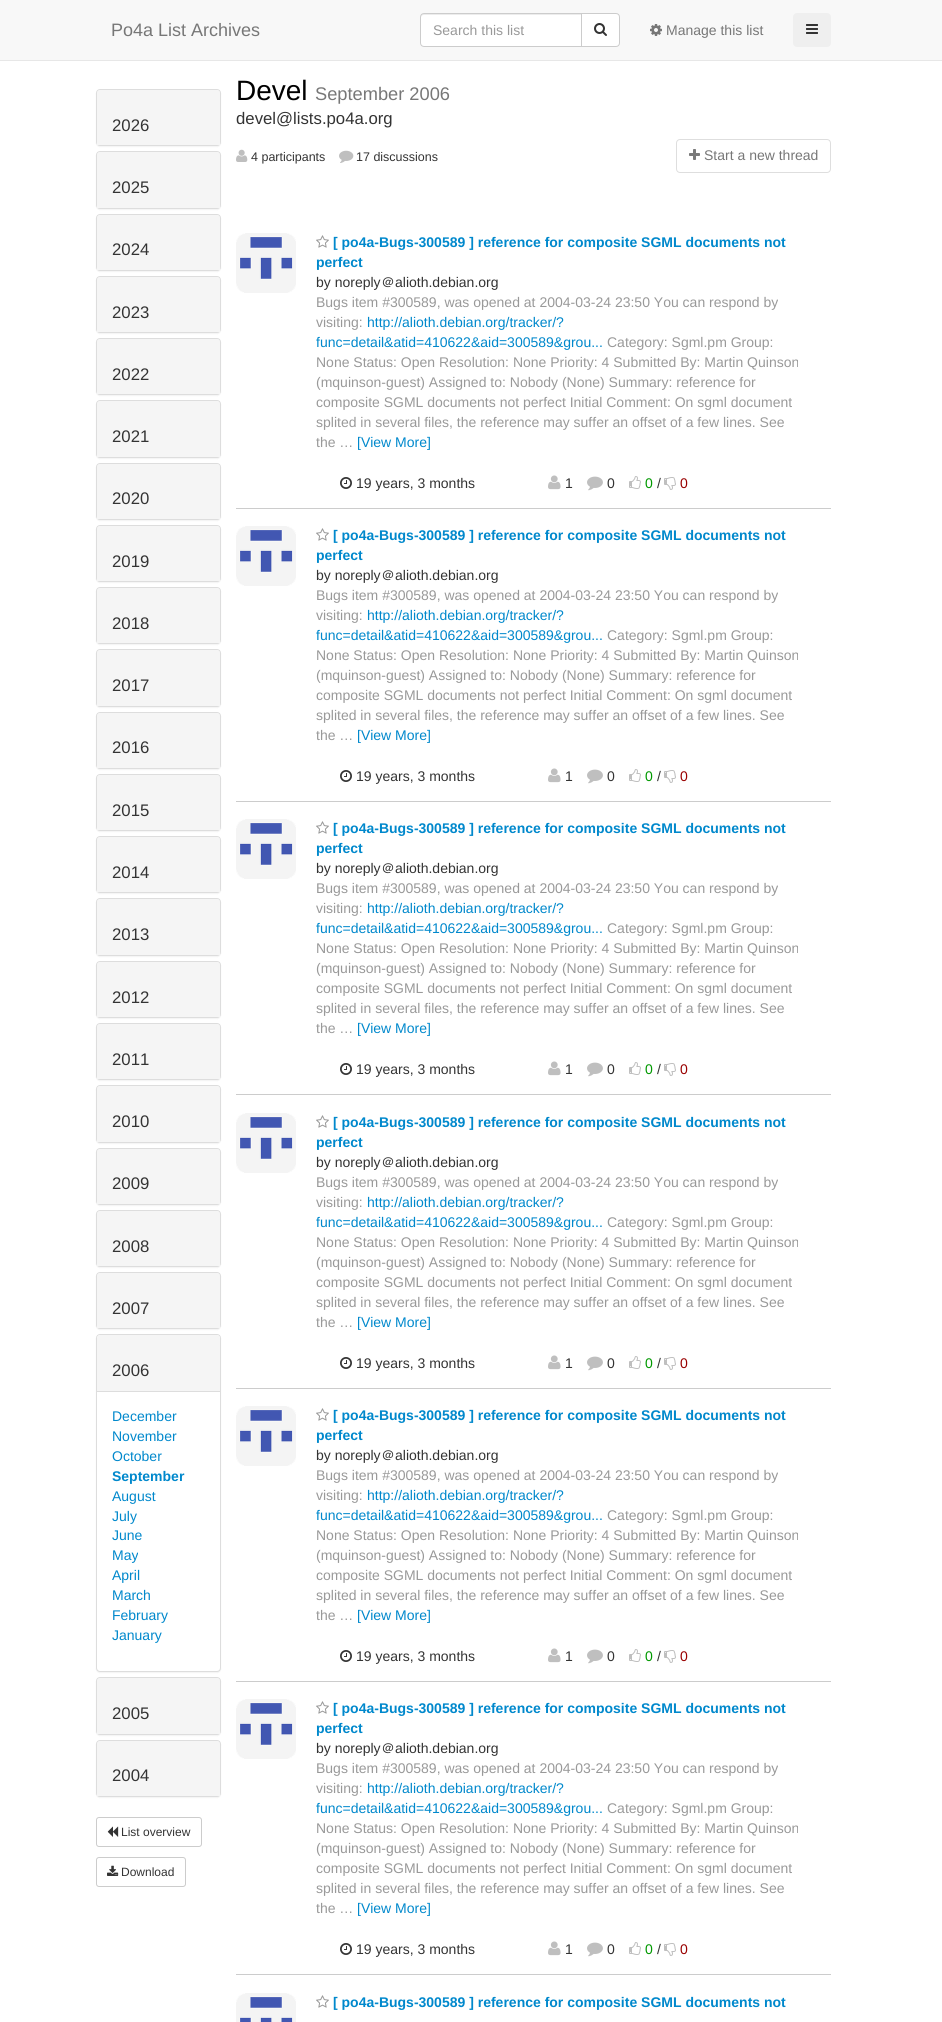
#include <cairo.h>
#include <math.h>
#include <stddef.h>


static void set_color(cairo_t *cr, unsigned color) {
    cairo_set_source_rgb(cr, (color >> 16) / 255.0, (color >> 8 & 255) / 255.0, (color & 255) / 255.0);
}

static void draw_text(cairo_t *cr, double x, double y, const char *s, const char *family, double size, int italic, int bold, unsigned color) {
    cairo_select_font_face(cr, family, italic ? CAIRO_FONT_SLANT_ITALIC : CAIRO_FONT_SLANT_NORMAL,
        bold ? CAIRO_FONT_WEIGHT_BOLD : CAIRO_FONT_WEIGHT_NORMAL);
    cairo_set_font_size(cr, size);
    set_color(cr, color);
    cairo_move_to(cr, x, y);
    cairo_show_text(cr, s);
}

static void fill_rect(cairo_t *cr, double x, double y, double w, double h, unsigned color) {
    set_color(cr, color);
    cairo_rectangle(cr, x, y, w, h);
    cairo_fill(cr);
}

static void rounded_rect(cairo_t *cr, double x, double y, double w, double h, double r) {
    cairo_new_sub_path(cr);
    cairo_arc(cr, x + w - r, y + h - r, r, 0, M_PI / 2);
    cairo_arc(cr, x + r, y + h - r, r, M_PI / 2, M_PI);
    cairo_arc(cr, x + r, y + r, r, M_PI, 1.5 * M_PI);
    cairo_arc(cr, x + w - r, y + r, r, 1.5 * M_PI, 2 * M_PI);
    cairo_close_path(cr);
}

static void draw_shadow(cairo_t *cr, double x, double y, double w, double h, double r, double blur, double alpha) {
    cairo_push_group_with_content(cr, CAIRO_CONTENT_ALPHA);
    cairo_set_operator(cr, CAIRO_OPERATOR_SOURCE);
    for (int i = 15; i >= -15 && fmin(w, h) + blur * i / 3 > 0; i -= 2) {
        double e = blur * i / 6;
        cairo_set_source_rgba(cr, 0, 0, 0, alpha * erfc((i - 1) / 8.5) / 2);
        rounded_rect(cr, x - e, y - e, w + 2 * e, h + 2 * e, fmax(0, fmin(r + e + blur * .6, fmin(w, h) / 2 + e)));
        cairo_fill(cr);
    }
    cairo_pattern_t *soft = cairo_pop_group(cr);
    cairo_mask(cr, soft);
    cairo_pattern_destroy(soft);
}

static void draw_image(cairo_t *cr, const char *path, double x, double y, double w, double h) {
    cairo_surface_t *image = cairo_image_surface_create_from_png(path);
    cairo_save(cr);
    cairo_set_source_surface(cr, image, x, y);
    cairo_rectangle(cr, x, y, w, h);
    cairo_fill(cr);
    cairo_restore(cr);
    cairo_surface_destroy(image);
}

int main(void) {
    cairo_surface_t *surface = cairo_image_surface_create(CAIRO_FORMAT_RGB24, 942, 2022);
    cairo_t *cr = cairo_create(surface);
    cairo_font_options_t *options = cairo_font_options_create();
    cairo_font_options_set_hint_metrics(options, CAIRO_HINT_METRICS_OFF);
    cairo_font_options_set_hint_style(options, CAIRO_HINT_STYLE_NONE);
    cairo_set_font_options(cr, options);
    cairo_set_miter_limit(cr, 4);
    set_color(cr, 0xFFFFFF);
    cairo_paint(cr);
    fill_rect(cr, 0, 0, 942, 60, 0xF8F8F8);
    fill_rect(cr, 0, 60, 942, 1, 0xE7E7E7);
    draw_text(cr, 111, 36, "Po4a List Archives", "Liberation Sans", 18, 0, 0, 0x777777);
    set_color(cr, 0xFFFFFF);
    cairo_new_path(cr);
    cairo_move_to(cr, 424, 13);
    cairo_line_to(cr, 582, 13);
    cairo_line_to(cr, 582, 47);
    cairo_line_to(cr, 424, 47);
    cairo_curve_to(cr, 422, 47, 420, 45, 420, 43);
    cairo_line_to(cr, 420, 17);
    cairo_curve_to(cr, 420, 15, 422, 13, 424, 13);
    cairo_close_path(cr);
    cairo_fill(cr);
    set_color(cr, 0xECECEC);
    cairo_new_path(cr);
    cairo_move_to(cr, 424, 15);
    cairo_line_to(cr, 581, 15);
    cairo_line_to(cr, 581, 14);
    cairo_line_to(cr, 423, 14);
    cairo_curve_to(cr, 421, 14, 421, 16, 421, 18);
    cairo_curve_to(cr, 421, 16, 422, 15, 424, 15);
    cairo_close_path(cr);
    cairo_fill(cr);
    cairo_new_path(cr);
    cairo_move_to(cr, 424, 13.5);
    cairo_line_to(cr, 581.5, 13.5);
    cairo_line_to(cr, 581.5, 46.5);
    cairo_line_to(cr, 424, 46.5);
    cairo_curve_to(cr, 422, 46.5, 420.5, 45, 420.5, 43);
    cairo_line_to(cr, 420.5, 17);
    cairo_curve_to(cr, 420.5, 15, 422, 13.5, 424, 13.5);
    cairo_close_path(cr);
    set_color(cr, 0xCCCCCC);
    cairo_set_line_width(cr, 1);
    cairo_stroke(cr);
    draw_text(cr, 433, 35, "Search this list", "Liberation Sans", 14, 0, 0, 0x999999);
    set_color(cr, 0xFFFFFF);
    cairo_new_path(cr);
    cairo_move_to(cr, 581.5, 13.5);
    cairo_line_to(cr, 616, 13.5);
    cairo_curve_to(cr, 618, 13.5, 619.5, 15, 619.5, 17);
    cairo_line_to(cr, 619.5, 43);
    cairo_curve_to(cr, 619.5, 45, 618, 46.5, 616, 46.5);
    cairo_line_to(cr, 581.5, 46.5);
    cairo_close_path(cr);
    cairo_fill_preserve(cr);
    set_color(cr, 0xCCCCCC);
    cairo_stroke(cr);
    draw_image(cr, "assets/img1.png", 594, 23, 13, 13);
    draw_image(cr, "assets/img2.png", 650, 24, 12, 12);
    draw_text(cr, 666, 35, "Manage this list", "Liberation Sans", 14, 0, 0, 0x777777);
    set_color(cr, 0xEFEFEF);
    rounded_rect(cr, 793, 13, 38, 34, 4);
    cairo_fill(cr);
    draw_image(cr, "assets/img3.png", 806, 24, 12, 10);
    set_color(cr, 0x000000);
    draw_shadow(cr, 96, 90, 125, 57, 4, 0.5, 0.05);
    rounded_rect(cr, 96.5, 89.5, 124, 56, 3.5);
    set_color(cr, 0xDDDDDD);
    cairo_stroke(cr);
    set_color(cr, 0xF5F5F5);
    cairo_new_path(cr);
    cairo_move_to(cr, 100, 90);
    cairo_line_to(cr, 217, 90);
    cairo_curve_to(cr, 218.5, 90, 220, 91.5, 220, 93);
    cairo_line_to(cr, 220, 145);
    cairo_line_to(cr, 97, 145);
    cairo_line_to(cr, 97, 93);
    cairo_curve_to(cr, 97, 91.5, 98.5, 90, 100, 90);
    cairo_close_path(cr);
    cairo_fill(cr);
    draw_text(cr, 112, 131, "2026", "Liberation Sans", 16.75, 0, 0, 0x333333);
    set_color(cr, 0x000000);
    draw_shadow(cr, 96, 152, 125, 58, 4, 0.5, 0.05);
    rounded_rect(cr, 96.5, 151.5, 124, 57, 3.5);
    set_color(cr, 0xDDDDDD);
    cairo_stroke(cr);
    set_color(cr, 0xF5F5F5);
    cairo_new_path(cr);
    cairo_move_to(cr, 100, 152);
    cairo_line_to(cr, 217, 152);
    cairo_curve_to(cr, 218.5, 152, 220, 153.5, 220, 155);
    cairo_line_to(cr, 220, 208);
    cairo_line_to(cr, 97, 208);
    cairo_line_to(cr, 97, 155);
    cairo_curve_to(cr, 97, 153.5, 98.5, 152, 100, 152);
    cairo_close_path(cr);
    cairo_fill(cr);
    draw_text(cr, 112, 193, "2025", "Liberation Sans", 16.75, 0, 0, 0x333333);
    set_color(cr, 0x000000);
    draw_shadow(cr, 96, 215, 125, 57, 4, 0.5, 0.05);
    rounded_rect(cr, 96.5, 214.5, 124, 56, 3.5);
    set_color(cr, 0xDDDDDD);
    cairo_stroke(cr);
    set_color(cr, 0xF5F5F5);
    cairo_new_path(cr);
    cairo_move_to(cr, 100, 215);
    cairo_line_to(cr, 217, 215);
    cairo_curve_to(cr, 218.5, 215, 220, 216.5, 220, 218);
    cairo_line_to(cr, 220, 270);
    cairo_line_to(cr, 97, 270);
    cairo_line_to(cr, 97, 218);
    cairo_curve_to(cr, 97, 216.5, 98.5, 215, 100, 215);
    cairo_close_path(cr);
    cairo_fill(cr);
    draw_text(cr, 112, 255, "2024", "Liberation Sans", 16.75, 0, 0, 0x333333);
    set_color(cr, 0x000000);
    draw_shadow(cr, 96, 277, 125, 57, 4, 0.5, 0.05);
    rounded_rect(cr, 96.5, 276.5, 124, 56, 3.5);
    set_color(cr, 0xDDDDDD);
    cairo_stroke(cr);
    set_color(cr, 0xF5F5F5);
    cairo_new_path(cr);
    cairo_move_to(cr, 100, 277);
    cairo_line_to(cr, 217, 277);
    cairo_curve_to(cr, 218.5, 277, 220, 278.5, 220, 280);
    cairo_line_to(cr, 220, 332);
    cairo_line_to(cr, 97, 332);
    cairo_line_to(cr, 97, 280);
    cairo_curve_to(cr, 97, 278.5, 98.5, 277, 100, 277);
    cairo_close_path(cr);
    cairo_fill(cr);
    draw_text(cr, 112, 318, "2023", "Liberation Sans", 16.75, 0, 0, 0x333333);
    set_color(cr, 0x000000);
    draw_shadow(cr, 96, 339, 125, 57, 4, 0.5, 0.05);
    rounded_rect(cr, 96.5, 338.5, 124, 56, 3.5);
    set_color(cr, 0xDDDDDD);
    cairo_stroke(cr);
    set_color(cr, 0xF5F5F5);
    cairo_new_path(cr);
    cairo_move_to(cr, 100, 339);
    cairo_line_to(cr, 217, 339);
    cairo_curve_to(cr, 218.5, 339, 220, 340.5, 220, 342);
    cairo_line_to(cr, 220, 394);
    cairo_line_to(cr, 97, 394);
    cairo_line_to(cr, 97, 342);
    cairo_curve_to(cr, 97, 340.5, 98.5, 339, 100, 339);
    cairo_close_path(cr);
    cairo_fill(cr);
    draw_text(cr, 112, 380, "2022", "Liberation Sans", 16.75, 0, 0, 0x333333);
    set_color(cr, 0x000000);
    draw_shadow(cr, 96, 401, 125, 58, 4, 0.5, 0.05);
    rounded_rect(cr, 96.5, 400.5, 124, 57, 3.5);
    set_color(cr, 0xDDDDDD);
    cairo_stroke(cr);
    set_color(cr, 0xF5F5F5);
    cairo_new_path(cr);
    cairo_move_to(cr, 100, 401);
    cairo_line_to(cr, 217, 401);
    cairo_curve_to(cr, 218.5, 401, 220, 402.5, 220, 404);
    cairo_line_to(cr, 220, 457);
    cairo_line_to(cr, 97, 457);
    cairo_line_to(cr, 97, 404);
    cairo_curve_to(cr, 97, 402.5, 98.5, 401, 100, 401);
    cairo_close_path(cr);
    cairo_fill(cr);
    draw_text(cr, 112, 442, "2021", "Liberation Sans", 16.75, 0, 0, 0x333333);
    set_color(cr, 0x000000);
    draw_shadow(cr, 96, 464, 125, 57, 4, 0.5, 0.05);
    rounded_rect(cr, 96.5, 463.5, 124, 56, 3.5);
    set_color(cr, 0xDDDDDD);
    cairo_stroke(cr);
    set_color(cr, 0xF5F5F5);
    cairo_new_path(cr);
    cairo_move_to(cr, 100, 464);
    cairo_line_to(cr, 217, 464);
    cairo_curve_to(cr, 218.5, 464, 220, 465.5, 220, 467);
    cairo_line_to(cr, 220, 519);
    cairo_line_to(cr, 97, 519);
    cairo_line_to(cr, 97, 467);
    cairo_curve_to(cr, 97, 465.5, 98.5, 464, 100, 464);
    cairo_close_path(cr);
    cairo_fill(cr);
    draw_text(cr, 112, 504, "2020", "Liberation Sans", 16.75, 0, 0, 0x333333);
    set_color(cr, 0x000000);
    draw_shadow(cr, 96, 526, 125, 57, 4, 0.5, 0.05);
    rounded_rect(cr, 96.5, 525.5, 124, 56, 3.5);
    set_color(cr, 0xDDDDDD);
    cairo_stroke(cr);
    set_color(cr, 0xF5F5F5);
    cairo_new_path(cr);
    cairo_move_to(cr, 100, 526);
    cairo_line_to(cr, 217, 526);
    cairo_curve_to(cr, 218.5, 526, 220, 527.5, 220, 529);
    cairo_line_to(cr, 220, 581);
    cairo_line_to(cr, 97, 581);
    cairo_line_to(cr, 97, 529);
    cairo_curve_to(cr, 97, 527.5, 98.5, 526, 100, 526);
    cairo_close_path(cr);
    cairo_fill(cr);
    draw_text(cr, 112, 567, "2019", "Liberation Sans", 16.75, 0, 0, 0x333333);
    set_color(cr, 0x000000);
    draw_shadow(cr, 96, 588, 125, 57, 4, 0.5, 0.05);
    rounded_rect(cr, 96.5, 587.5, 124, 56, 3.5);
    set_color(cr, 0xDDDDDD);
    cairo_stroke(cr);
    set_color(cr, 0xF5F5F5);
    cairo_new_path(cr);
    cairo_move_to(cr, 100, 588);
    cairo_line_to(cr, 217, 588);
    cairo_curve_to(cr, 218.5, 588, 220, 589.5, 220, 591);
    cairo_line_to(cr, 220, 643);
    cairo_line_to(cr, 97, 643);
    cairo_line_to(cr, 97, 591);
    cairo_curve_to(cr, 97, 589.5, 98.5, 588, 100, 588);
    cairo_close_path(cr);
    cairo_fill(cr);
    draw_text(cr, 112, 629, "2018", "Liberation Sans", 16.75, 0, 0, 0x333333);
    set_color(cr, 0x000000);
    draw_shadow(cr, 96, 650, 125, 58, 4, 0.5, 0.05);
    rounded_rect(cr, 96.5, 649.5, 124, 57, 3.5);
    set_color(cr, 0xDDDDDD);
    cairo_stroke(cr);
    set_color(cr, 0xF5F5F5);
    cairo_new_path(cr);
    cairo_move_to(cr, 100, 650);
    cairo_line_to(cr, 217, 650);
    cairo_curve_to(cr, 218.5, 650, 220, 651.5, 220, 653);
    cairo_line_to(cr, 220, 706);
    cairo_line_to(cr, 97, 706);
    cairo_line_to(cr, 97, 653);
    cairo_curve_to(cr, 97, 651.5, 98.5, 650, 100, 650);
    cairo_close_path(cr);
    cairo_fill(cr);
    draw_text(cr, 112, 691, "2017", "Liberation Sans", 16.75, 0, 0, 0x333333);
    set_color(cr, 0x000000);
    draw_shadow(cr, 96, 713, 125, 57, 4, 0.5, 0.05);
    rounded_rect(cr, 96.5, 712.5, 124, 56, 3.5);
    set_color(cr, 0xDDDDDD);
    cairo_stroke(cr);
    set_color(cr, 0xF5F5F5);
    cairo_new_path(cr);
    cairo_move_to(cr, 100, 713);
    cairo_line_to(cr, 217, 713);
    cairo_curve_to(cr, 218.5, 713, 220, 714.5, 220, 716);
    cairo_line_to(cr, 220, 768);
    cairo_line_to(cr, 97, 768);
    cairo_line_to(cr, 97, 716);
    cairo_curve_to(cr, 97, 714.5, 98.5, 713, 100, 713);
    cairo_close_path(cr);
    cairo_fill(cr);
    draw_text(cr, 112, 753, "2016", "Liberation Sans", 16.75, 0, 0, 0x333333);
    set_color(cr, 0x000000);
    draw_shadow(cr, 96, 775, 125, 57, 4, 0.5, 0.05);
    rounded_rect(cr, 96.5, 774.5, 124, 56, 3.5);
    set_color(cr, 0xDDDDDD);
    cairo_stroke(cr);
    set_color(cr, 0xF5F5F5);
    cairo_new_path(cr);
    cairo_move_to(cr, 100, 775);
    cairo_line_to(cr, 217, 775);
    cairo_curve_to(cr, 218.5, 775, 220, 776.5, 220, 778);
    cairo_line_to(cr, 220, 830);
    cairo_line_to(cr, 97, 830);
    cairo_line_to(cr, 97, 778);
    cairo_curve_to(cr, 97, 776.5, 98.5, 775, 100, 775);
    cairo_close_path(cr);
    cairo_fill(cr);
    draw_text(cr, 112, 816, "2015", "Liberation Sans", 16.75, 0, 0, 0x333333);
    set_color(cr, 0x000000);
    draw_shadow(cr, 96, 837, 125, 57, 4, 0.5, 0.05);
    rounded_rect(cr, 96.5, 836.5, 124, 56, 3.5);
    set_color(cr, 0xDDDDDD);
    cairo_stroke(cr);
    set_color(cr, 0xF5F5F5);
    cairo_new_path(cr);
    cairo_move_to(cr, 100, 837);
    cairo_line_to(cr, 217, 837);
    cairo_curve_to(cr, 218.5, 837, 220, 838.5, 220, 840);
    cairo_line_to(cr, 220, 892);
    cairo_line_to(cr, 97, 892);
    cairo_line_to(cr, 97, 840);
    cairo_curve_to(cr, 97, 838.5, 98.5, 837, 100, 837);
    cairo_close_path(cr);
    cairo_fill(cr);
    draw_text(cr, 112, 878, "2014", "Liberation Sans", 16.75, 0, 0, 0x333333);
    set_color(cr, 0x000000);
    draw_shadow(cr, 96, 899, 125, 58, 4, 0.5, 0.05);
    rounded_rect(cr, 96.5, 898.5, 124, 57, 3.5);
    set_color(cr, 0xDDDDDD);
    cairo_stroke(cr);
    set_color(cr, 0xF5F5F5);
    cairo_new_path(cr);
    cairo_move_to(cr, 100, 899);
    cairo_line_to(cr, 217, 899);
    cairo_curve_to(cr, 218.5, 899, 220, 900.5, 220, 902);
    cairo_line_to(cr, 220, 955);
    cairo_line_to(cr, 97, 955);
    cairo_line_to(cr, 97, 902);
    cairo_curve_to(cr, 97, 900.5, 98.5, 899, 100, 899);
    cairo_close_path(cr);
    cairo_fill(cr);
    draw_text(cr, 112, 940, "2013", "Liberation Sans", 16.75, 0, 0, 0x333333);
    set_color(cr, 0x000000);
    draw_shadow(cr, 96, 962, 125, 57, 4, 0.5, 0.05);
    rounded_rect(cr, 96.5, 961.5, 124, 56, 3.5);
    set_color(cr, 0xDDDDDD);
    cairo_stroke(cr);
    set_color(cr, 0xF5F5F5);
    cairo_new_path(cr);
    cairo_move_to(cr, 100, 962);
    cairo_line_to(cr, 217, 962);
    cairo_curve_to(cr, 218.5, 962, 220, 963.5, 220, 965);
    cairo_line_to(cr, 220, 1017);
    cairo_line_to(cr, 97, 1017);
    cairo_line_to(cr, 97, 965);
    cairo_curve_to(cr, 97, 963.5, 98.5, 962, 100, 962);
    cairo_close_path(cr);
    cairo_fill(cr);
    draw_text(cr, 112, 1003, "2012", "Liberation Sans", 16.75, 0, 0, 0x333333);
    set_color(cr, 0x000000);
    draw_shadow(cr, 96, 1024, 125, 57, 4, 0.5, 0.05);
    rounded_rect(cr, 96.5, 1023.5, 124, 56, 3.5);
    set_color(cr, 0xDDDDDD);
    cairo_stroke(cr);
    set_color(cr, 0xF5F5F5);
    cairo_new_path(cr);
    cairo_move_to(cr, 100, 1024);
    cairo_line_to(cr, 217, 1024);
    cairo_curve_to(cr, 218.5, 1024, 220, 1025.5, 220, 1027);
    cairo_line_to(cr, 220, 1079);
    cairo_line_to(cr, 97, 1079);
    cairo_line_to(cr, 97, 1027);
    cairo_curve_to(cr, 97, 1025.5, 98.5, 1024, 100, 1024);
    cairo_close_path(cr);
    cairo_fill(cr);
    draw_text(cr, 112, 1065, "2011", "Liberation Sans", 16.75, 0, 0, 0x333333);
    set_color(cr, 0x000000);
    draw_shadow(cr, 96, 1086, 125, 58, 4, 0.5, 0.05);
    rounded_rect(cr, 96.5, 1085.5, 124, 57, 3.5);
    set_color(cr, 0xDDDDDD);
    cairo_stroke(cr);
    set_color(cr, 0xF5F5F5);
    cairo_new_path(cr);
    cairo_move_to(cr, 100, 1086);
    cairo_line_to(cr, 217, 1086);
    cairo_curve_to(cr, 218.5, 1086, 220, 1087.5, 220, 1089);
    cairo_line_to(cr, 220, 1142);
    cairo_line_to(cr, 97, 1142);
    cairo_line_to(cr, 97, 1089);
    cairo_curve_to(cr, 97, 1087.5, 98.5, 1086, 100, 1086);
    cairo_close_path(cr);
    cairo_fill(cr);
    draw_text(cr, 112, 1127, "2010", "Liberation Sans", 16.75, 0, 0, 0x333333);
    set_color(cr, 0x000000);
    draw_shadow(cr, 96, 1149, 125, 57, 4, 0.5, 0.05);
    rounded_rect(cr, 96.5, 1148.5, 124, 56, 3.5);
    set_color(cr, 0xDDDDDD);
    cairo_stroke(cr);
    set_color(cr, 0xF5F5F5);
    cairo_new_path(cr);
    cairo_move_to(cr, 100, 1149);
    cairo_line_to(cr, 217, 1149);
    cairo_curve_to(cr, 218.5, 1149, 220, 1150.5, 220, 1152);
    cairo_line_to(cr, 220, 1204);
    cairo_line_to(cr, 97, 1204);
    cairo_line_to(cr, 97, 1152);
    cairo_curve_to(cr, 97, 1150.5, 98.5, 1149, 100, 1149);
    cairo_close_path(cr);
    cairo_fill(cr);
    draw_text(cr, 112, 1189, "2009", "Liberation Sans", 16.75, 0, 0, 0x333333);
    set_color(cr, 0x000000);
    draw_shadow(cr, 96, 1211, 125, 57, 4, 0.5, 0.05);
    rounded_rect(cr, 96.5, 1210.5, 124, 56, 3.5);
    set_color(cr, 0xDDDDDD);
    cairo_stroke(cr);
    set_color(cr, 0xF5F5F5);
    cairo_new_path(cr);
    cairo_move_to(cr, 100, 1211);
    cairo_line_to(cr, 217, 1211);
    cairo_curve_to(cr, 218.5, 1211, 220, 1212.5, 220, 1214);
    cairo_line_to(cr, 220, 1266);
    cairo_line_to(cr, 97, 1266);
    cairo_line_to(cr, 97, 1214);
    cairo_curve_to(cr, 97, 1212.5, 98.5, 1211, 100, 1211);
    cairo_close_path(cr);
    cairo_fill(cr);
    draw_text(cr, 112, 1252, "2008", "Liberation Sans", 16.75, 0, 0, 0x333333);
    set_color(cr, 0x000000);
    draw_shadow(cr, 96, 1273, 125, 57, 4, 0.5, 0.05);
    rounded_rect(cr, 96.5, 1272.5, 124, 56, 3.5);
    set_color(cr, 0xDDDDDD);
    cairo_stroke(cr);
    set_color(cr, 0xF5F5F5);
    cairo_new_path(cr);
    cairo_move_to(cr, 100, 1273);
    cairo_line_to(cr, 217, 1273);
    cairo_curve_to(cr, 218.5, 1273, 220, 1274.5, 220, 1276);
    cairo_line_to(cr, 220, 1328);
    cairo_line_to(cr, 97, 1328);
    cairo_line_to(cr, 97, 1276);
    cairo_curve_to(cr, 97, 1274.5, 98.5, 1273, 100, 1273);
    cairo_close_path(cr);
    cairo_fill(cr);
    draw_text(cr, 112, 1314, "2007", "Liberation Sans", 16.75, 0, 0, 0x333333);
    set_color(cr, 0x000000);
    draw_shadow(cr, 96, 1335, 125, 338, 4, 0.5, 0.05);
    set_color(cr, 0xFFFFFF);
    rounded_rect(cr, 96.5, 1334.5, 124, 337, 3.5);
    cairo_fill_preserve(cr);
    set_color(cr, 0xDDDDDD);
    cairo_stroke(cr);
    set_color(cr, 0xF5F5F5);
    cairo_new_path(cr);
    cairo_move_to(cr, 100, 1335);
    cairo_line_to(cr, 217, 1335);
    cairo_curve_to(cr, 218.5, 1335, 220, 1336.5, 220, 1338);
    cairo_line_to(cr, 220, 1391);
    cairo_line_to(cr, 97, 1391);
    cairo_line_to(cr, 97, 1338);
    cairo_curve_to(cr, 97, 1336.5, 98.5, 1335, 100, 1335);
    cairo_close_path(cr);
    cairo_fill(cr);
    draw_text(cr, 112, 1376, "2006", "Liberation Sans", 16.75, 0, 0, 0x333333);
    fill_rect(cr, 97, 1391, 123, 1, 0xDDDDDD);
    draw_text(cr, 112, 1421, "December", "Liberation Sans", 14, 0, 0, 0x0088CC);
    draw_text(cr, 112, 1441, "November", "Liberation Sans", 14, 0, 0, 0x0088CC);
    draw_text(cr, 112, 1461, "October", "Liberation Sans", 14, 0, 0, 0x0088CC);
    draw_text(cr, 112, 1481, "September", "Liberation Sans", 14, 0, 1, 0x0088CC);
    draw_text(cr, 112, 1501, "August", "Liberation Sans", 14, 0, 0, 0x0088CC);
    draw_text(cr, 112, 1521, "July", "Liberation Sans", 14, 0, 0, 0x0088CC);
    draw_text(cr, 112, 1540, "June", "Liberation Sans", 14, 0, 0, 0x0088CC);
    draw_text(cr, 112, 1560, "May", "Liberation Sans", 14, 0, 0, 0x0088CC);
    draw_text(cr, 112, 1580, "April", "Liberation Sans", 14, 0, 0, 0x0088CC);
    draw_text(cr, 112, 1600, "March", "Liberation Sans", 14, 0, 0, 0x0088CC);
    draw_text(cr, 112, 1620, "February", "Liberation Sans", 14, 0, 0, 0x0088CC);
    draw_text(cr, 112, 1640, "January", "Liberation Sans", 14, 0, 0, 0x0088CC);
    set_color(cr, 0x000000);
    draw_shadow(cr, 96, 1678, 125, 58, 4, 0.5, 0.05);
    rounded_rect(cr, 96.5, 1677.5, 124, 57, 3.5);
    set_color(cr, 0xDDDDDD);
    cairo_stroke(cr);
    set_color(cr, 0xF5F5F5);
    cairo_new_path(cr);
    cairo_move_to(cr, 100, 1678);
    cairo_line_to(cr, 217, 1678);
    cairo_curve_to(cr, 218.5, 1678, 220, 1679.5, 220, 1681);
    cairo_line_to(cr, 220, 1734);
    cairo_line_to(cr, 97, 1734);
    cairo_line_to(cr, 97, 1681);
    cairo_curve_to(cr, 97, 1679.5, 98.5, 1678, 100, 1678);
    cairo_close_path(cr);
    cairo_fill(cr);
    draw_text(cr, 112, 1719, "2005", "Liberation Sans", 16.75, 0, 0, 0x333333);
    set_color(cr, 0x000000);
    draw_shadow(cr, 96, 1741, 125, 57, 4, 0.5, 0.05);
    rounded_rect(cr, 96.5, 1740.5, 124, 56, 3.5);
    set_color(cr, 0xDDDDDD);
    cairo_stroke(cr);
    set_color(cr, 0xF5F5F5);
    cairo_new_path(cr);
    cairo_move_to(cr, 100, 1741);
    cairo_line_to(cr, 217, 1741);
    cairo_curve_to(cr, 218.5, 1741, 220, 1742.5, 220, 1744);
    cairo_line_to(cr, 220, 1796);
    cairo_line_to(cr, 97, 1796);
    cairo_line_to(cr, 97, 1744);
    cairo_curve_to(cr, 97, 1742.5, 98.5, 1741, 100, 1741);
    cairo_close_path(cr);
    cairo_fill(cr);
    draw_text(cr, 112, 1781, "2004", "Liberation Sans", 16.75, 0, 0, 0x333333);
    rounded_rect(cr, 96.5, 1817.5, 105, 29, 2.5);
    set_color(cr, 0xCCCCCC);
    cairo_stroke(cr);
    draw_image(cr, "assets/img4.png", 107, 1826, 12, 11);
    draw_text(cr, 121, 1836, "List overview", "Liberation Sans", 12, 0, 0, 0x333333);
    rounded_rect(cr, 96.5, 1857.5, 89, 29, 2.5);
    set_color(cr, 0xCCCCCC);
    cairo_stroke(cr);
    draw_image(cr, "assets/img5.png", 107, 1865, 12, 11);
    draw_text(cr, 121, 1876, "Download", "Liberation Sans", 12, 0, 0, 0x333333);
    draw_text(cr, 236, 100, "Devel", "Liberation Sans", 28, 0, 0, 0x000000);
    draw_text(cr, 315, 100, "September 2006", "Liberation Sans", 18.25, 0, 0, 0x777777);
    draw_text(cr, 236, 124, "devel@lists.po4a.org", "Liberation Sans", 16.75, 0, 0, 0x333333);
    draw_image(cr, "assets/img6.png", 236, 149, 12, 13);
    draw_text(cr, 251, 161, "4 participants", "Liberation Sans", 12.5, 0, 0, 0x333333);
    draw_image(cr, "assets/img7.png", 339, 150, 15, 13);
    draw_text(cr, 356, 161, "17 discussions", "Liberation Sans", 12.5, 0, 0, 0x333333);
    rounded_rect(cr, 676.5, 139.5, 154, 33, 3.5);
    set_color(cr, 0xDEDEDE);
    cairo_stroke(cr);
    draw_image(cr, "assets/img8.png", 689, 149, 11, 11);
    draw_text(cr, 704, 160, "Start a new thread", "Liberation Sans", 14, 0, 0, 0x777777);
    fill_rect(cr, 236, 508, 595, 1, 0xCCCCCC);
    draw_image(cr, "assets/img9.png", 236, 233, 60, 60);
    draw_image(cr, "assets/img10.png", 316, 235, 13, 13);
    draw_text(cr, 333, 247, "[ po4a-Bugs-300589 ] reference for composite SGML documents not", "Liberation Sans", 14, 0, 1, 0x0088CC);
    draw_text(cr, 316, 267, "perfect", "Liberation Sans", 14, 0, 1, 0x0088CC);
    draw_text(cr, 316, 287, "by noreply", "Liberation Sans", 14, 0, 0, 0x333333);
    draw_text(cr, 381, 287, "＠", "WenQuanYi Zen Hei Medium", 14, 0, 0, 0x333333);
    draw_text(cr, 395, 287, "alioth.debian.org", "Liberation Sans", 14, 0, 0, 0x333333);
    draw_text(cr, 316, 307, "Bugs item #300589, was opened at 2004-03-24 23:50 You can respond by", "Liberation Sans", 14, 0, 0, 0x999999);
    draw_text(cr, 316, 327, "visiting:", "Liberation Sans", 14, 0, 0, 0x999999);
    draw_text(cr, 367, 327, "http://alioth.debian.org/tracker/?", "Liberation Sans", 14, 0, 0, 0x0088CC);
    draw_text(cr, 316, 347, "func=detail&atid=410622&aid=300589&grou...", "Liberation Sans", 14, 0, 0, 0x0088CC);
    draw_text(cr, 607, 347, "Category: Sgml.pm Group:", "Liberation Sans", 14, 0, 0, 0x999999);
    draw_text(cr, 316, 367, "None Status: Open Resolution: None Priority: 4 Submitted By: Martin Quinson", "Liberation Sans", 14, 0, 0, 0x999999);
    draw_text(cr, 316, 387, "(mquinson-guest) Assigned to: Nobody (None) Summary: reference for", "Liberation Sans", 14, 0, 0, 0x999999);
    draw_text(cr, 316, 407, "composite SGML documents not perfect Initial Comment: On sgml document", "Liberation Sans", 14, 0, 0, 0x999999);
    draw_text(cr, 316, 427, "splited in several files, the reference may suffer an offset of a few lines. See", "Liberation Sans", 14, 0, 0, 0x999999);
    draw_text(cr, 316, 447, "the …", "Liberation Sans", 14, 0, 0, 0x999999);
    draw_text(cr, 357, 447, "[View More]", "Liberation Sans", 14, 0, 0, 0x0088CC);
    draw_image(cr, "assets/img11.png", 340, 477, 12, 12);
    draw_text(cr, 356, 488, "19 years, 3 months", "Liberation Sans", 14, 0, 0, 0x333333);
    draw_image(cr, "assets/img12.png", 548, 475, 13, 15);
    draw_text(cr, 565, 488, "1", "Liberation Sans", 14, 0, 0, 0x333333);
    draw_image(cr, "assets/img13.png", 587, 476, 16, 15);
    draw_text(cr, 607, 488, "0", "Liberation Sans", 14, 0, 0, 0x333333);
    draw_image(cr, "assets/img14.png", 629, 476, 12, 13);
    draw_text(cr, 645, 488, "0", "Liberation Sans", 14, 0, 0, 0x009900);
    draw_text(cr, 657, 488, "/", "Liberation Sans", 14, 0, 0, 0x333333);
    draw_image(cr, "assets/img15.png", 664, 477, 12, 13);
    draw_text(cr, 680, 488, "0", "Liberation Sans", 14, 0, 0, 0x990000);
    fill_rect(cr, 236, 801, 595, 1, 0xCCCCCC);
    draw_image(cr, "assets/img9.png", 236, 526, 60, 60);
    draw_image(cr, "assets/img10.png", 316, 528, 13, 13);
    draw_text(cr, 333, 540, "[ po4a-Bugs-300589 ] reference for composite SGML documents not", "Liberation Sans", 14, 0, 1, 0x0088CC);
    draw_text(cr, 316, 560, "perfect", "Liberation Sans", 14, 0, 1, 0x0088CC);
    draw_text(cr, 316, 580, "by noreply", "Liberation Sans", 14, 0, 0, 0x333333);
    draw_text(cr, 381, 580, "＠", "WenQuanYi Zen Hei Medium", 14, 0, 0, 0x333333);
    draw_text(cr, 395, 580, "alioth.debian.org", "Liberation Sans", 14, 0, 0, 0x333333);
    draw_text(cr, 316, 600, "Bugs item #300589, was opened at 2004-03-24 23:50 You can respond by", "Liberation Sans", 14, 0, 0, 0x999999);
    draw_text(cr, 316, 620, "visiting:", "Liberation Sans", 14, 0, 0, 0x999999);
    draw_text(cr, 367, 620, "http://alioth.debian.org/tracker/?", "Liberation Sans", 14, 0, 0, 0x0088CC);
    draw_text(cr, 316, 640, "func=detail&atid=410622&aid=300589&grou...", "Liberation Sans", 14, 0, 0, 0x0088CC);
    draw_text(cr, 607, 640, "Category: Sgml.pm Group:", "Liberation Sans", 14, 0, 0, 0x999999);
    draw_text(cr, 316, 660, "None Status: Open Resolution: None Priority: 4 Submitted By: Martin Quinson", "Liberation Sans", 14, 0, 0, 0x999999);
    draw_text(cr, 316, 680, "(mquinson-guest) Assigned to: Nobody (None) Summary: reference for", "Liberation Sans", 14, 0, 0, 0x999999);
    draw_text(cr, 316, 700, "composite SGML documents not perfect Initial Comment: On sgml document", "Liberation Sans", 14, 0, 0, 0x999999);
    draw_text(cr, 316, 720, "splited in several files, the reference may suffer an offset of a few lines. See", "Liberation Sans", 14, 0, 0, 0x999999);
    draw_text(cr, 316, 740, "the …", "Liberation Sans", 14, 0, 0, 0x999999);
    draw_text(cr, 357, 740, "[View More]", "Liberation Sans", 14, 0, 0, 0x0088CC);
    draw_image(cr, "assets/img11.png", 340, 770, 12, 12);
    draw_text(cr, 356, 781, "19 years, 3 months", "Liberation Sans", 14, 0, 0, 0x333333);
    draw_image(cr, "assets/img12.png", 548, 768, 13, 15);
    draw_text(cr, 565, 781, "1", "Liberation Sans", 14, 0, 0, 0x333333);
    draw_image(cr, "assets/img13.png", 587, 769, 16, 15);
    draw_text(cr, 607, 781, "0", "Liberation Sans", 14, 0, 0, 0x333333);
    draw_image(cr, "assets/img14.png", 629, 769, 12, 13);
    draw_text(cr, 645, 781, "0", "Liberation Sans", 14, 0, 0, 0x009900);
    draw_text(cr, 657, 781, "/", "Liberation Sans", 14, 0, 0, 0x333333);
    draw_image(cr, "assets/img15.png", 664, 770, 12, 13);
    draw_text(cr, 680, 781, "0", "Liberation Sans", 14, 0, 0, 0x990000);
    fill_rect(cr, 236, 1094, 595, 1, 0xCCCCCC);
    draw_image(cr, "assets/img9.png", 236, 819, 60, 60);
    draw_image(cr, "assets/img10.png", 316, 821, 13, 13);
    draw_text(cr, 333, 833, "[ po4a-Bugs-300589 ] reference for composite SGML documents not", "Liberation Sans", 14, 0, 1, 0x0088CC);
    draw_text(cr, 316, 853, "perfect", "Liberation Sans", 14, 0, 1, 0x0088CC);
    draw_text(cr, 316, 873, "by noreply", "Liberation Sans", 14, 0, 0, 0x333333);
    draw_text(cr, 381, 873, "＠", "WenQuanYi Zen Hei Medium", 14, 0, 0, 0x333333);
    draw_text(cr, 395, 873, "alioth.debian.org", "Liberation Sans", 14, 0, 0, 0x333333);
    draw_text(cr, 316, 893, "Bugs item #300589, was opened at 2004-03-24 23:50 You can respond by", "Liberation Sans", 14, 0, 0, 0x999999);
    draw_text(cr, 316, 913, "visiting:", "Liberation Sans", 14, 0, 0, 0x999999);
    draw_text(cr, 367, 913, "http://alioth.debian.org/tracker/?", "Liberation Sans", 14, 0, 0, 0x0088CC);
    draw_text(cr, 316, 933, "func=detail&atid=410622&aid=300589&grou...", "Liberation Sans", 14, 0, 0, 0x0088CC);
    draw_text(cr, 607, 933, "Category: Sgml.pm Group:", "Liberation Sans", 14, 0, 0, 0x999999);
    draw_text(cr, 316, 953, "None Status: Open Resolution: None Priority: 4 Submitted By: Martin Quinson", "Liberation Sans", 14, 0, 0, 0x999999);
    draw_text(cr, 316, 973, "(mquinson-guest) Assigned to: Nobody (None) Summary: reference for", "Liberation Sans", 14, 0, 0, 0x999999);
    draw_text(cr, 316, 993, "composite SGML documents not perfect Initial Comment: On sgml document", "Liberation Sans", 14, 0, 0, 0x999999);
    draw_text(cr, 316, 1013, "splited in several files, the reference may suffer an offset of a few lines. See", "Liberation Sans", 14, 0, 0, 0x999999);
    draw_text(cr, 316, 1033, "the …", "Liberation Sans", 14, 0, 0, 0x999999);
    draw_text(cr, 357, 1033, "[View More]", "Liberation Sans", 14, 0, 0, 0x0088CC);
    draw_image(cr, "assets/img11.png", 340, 1063, 12, 12);
    draw_text(cr, 356, 1074, "19 years, 3 months", "Liberation Sans", 14, 0, 0, 0x333333);
    draw_image(cr, "assets/img12.png", 548, 1061, 13, 15);
    draw_text(cr, 565, 1074, "1", "Liberation Sans", 14, 0, 0, 0x333333);
    draw_image(cr, "assets/img13.png", 587, 1062, 16, 15);
    draw_text(cr, 607, 1074, "0", "Liberation Sans", 14, 0, 0, 0x333333);
    draw_image(cr, "assets/img14.png", 629, 1062, 12, 13);
    draw_text(cr, 645, 1074, "0", "Liberation Sans", 14, 0, 0, 0x009900);
    draw_text(cr, 657, 1074, "/", "Liberation Sans", 14, 0, 0, 0x333333);
    draw_image(cr, "assets/img15.png", 664, 1063, 12, 13);
    draw_text(cr, 680, 1074, "0", "Liberation Sans", 14, 0, 0, 0x990000);
    fill_rect(cr, 236, 1388, 595, 1, 0xCCCCCC);
    draw_image(cr, "assets/img9.png", 236, 1113, 60, 60);
    draw_image(cr, "assets/img10.png", 316, 1115, 13, 13);
    draw_text(cr, 333, 1127, "[ po4a-Bugs-300589 ] reference for composite SGML documents not", "Liberation Sans", 14, 0, 1, 0x0088CC);
    draw_text(cr, 316, 1147, "perfect", "Liberation Sans", 14, 0, 1, 0x0088CC);
    draw_text(cr, 316, 1167, "by noreply", "Liberation Sans", 14, 0, 0, 0x333333);
    draw_text(cr, 381, 1167, "＠", "WenQuanYi Zen Hei Medium", 14, 0, 0, 0x333333);
    draw_text(cr, 395, 1167, "alioth.debian.org", "Liberation Sans", 14, 0, 0, 0x333333);
    draw_text(cr, 316, 1187, "Bugs item #300589, was opened at 2004-03-24 23:50 You can respond by", "Liberation Sans", 14, 0, 0, 0x999999);
    draw_text(cr, 316, 1207, "visiting:", "Liberation Sans", 14, 0, 0, 0x999999);
    draw_text(cr, 367, 1207, "http://alioth.debian.org/tracker/?", "Liberation Sans", 14, 0, 0, 0x0088CC);
    draw_text(cr, 316, 1227, "func=detail&atid=410622&aid=300589&grou...", "Liberation Sans", 14, 0, 0, 0x0088CC);
    draw_text(cr, 607, 1227, "Category: Sgml.pm Group:", "Liberation Sans", 14, 0, 0, 0x999999);
    draw_text(cr, 316, 1247, "None Status: Open Resolution: None Priority: 4 Submitted By: Martin Quinson", "Liberation Sans", 14, 0, 0, 0x999999);
    draw_text(cr, 316, 1267, "(mquinson-guest) Assigned to: Nobody (None) Summary: reference for", "Liberation Sans", 14, 0, 0, 0x999999);
    draw_text(cr, 316, 1287, "composite SGML documents not perfect Initial Comment: On sgml document", "Liberation Sans", 14, 0, 0, 0x999999);
    draw_text(cr, 316, 1307, "splited in several files, the reference may suffer an offset of a few lines. See", "Liberation Sans", 14, 0, 0, 0x999999);
    draw_text(cr, 316, 1327, "the …", "Liberation Sans", 14, 0, 0, 0x999999);
    draw_text(cr, 357, 1327, "[View More]", "Liberation Sans", 14, 0, 0, 0x0088CC);
    draw_image(cr, "assets/img11.png", 340, 1357, 12, 12);
    draw_text(cr, 356, 1368, "19 years, 3 months", "Liberation Sans", 14, 0, 0, 0x333333);
    draw_image(cr, "assets/img12.png", 548, 1355, 13, 15);
    draw_text(cr, 565, 1368, "1", "Liberation Sans", 14, 0, 0, 0x333333);
    draw_image(cr, "assets/img13.png", 587, 1356, 16, 15);
    draw_text(cr, 607, 1368, "0", "Liberation Sans", 14, 0, 0, 0x333333);
    draw_image(cr, "assets/img14.png", 629, 1356, 12, 13);
    draw_text(cr, 645, 1368, "0", "Liberation Sans", 14, 0, 0, 0x009900);
    draw_text(cr, 657, 1368, "/", "Liberation Sans", 14, 0, 0, 0x333333);
    draw_image(cr, "assets/img15.png", 664, 1357, 12, 13);
    draw_text(cr, 680, 1368, "0", "Liberation Sans", 14, 0, 0, 0x990000);
    fill_rect(cr, 236, 1681, 595, 1, 0xCCCCCC);
    draw_image(cr, "assets/img9.png", 236, 1406, 60, 60);
    draw_image(cr, "assets/img10.png", 316, 1408, 13, 13);
    draw_text(cr, 333, 1420, "[ po4a-Bugs-300589 ] reference for composite SGML documents not", "Liberation Sans", 14, 0, 1, 0x0088CC);
    draw_text(cr, 316, 1440, "perfect", "Liberation Sans", 14, 0, 1, 0x0088CC);
    draw_text(cr, 316, 1460, "by noreply", "Liberation Sans", 14, 0, 0, 0x333333);
    draw_text(cr, 381, 1460, "＠", "WenQuanYi Zen Hei Medium", 14, 0, 0, 0x333333);
    draw_text(cr, 395, 1460, "alioth.debian.org", "Liberation Sans", 14, 0, 0, 0x333333);
    draw_text(cr, 316, 1480, "Bugs item #300589, was opened at 2004-03-24 23:50 You can respond by", "Liberation Sans", 14, 0, 0, 0x999999);
    draw_text(cr, 316, 1500, "visiting:", "Liberation Sans", 14, 0, 0, 0x999999);
    draw_text(cr, 367, 1500, "http://alioth.debian.org/tracker/?", "Liberation Sans", 14, 0, 0, 0x0088CC);
    draw_text(cr, 316, 1520, "func=detail&atid=410622&aid=300589&grou...", "Liberation Sans", 14, 0, 0, 0x0088CC);
    draw_text(cr, 607, 1520, "Category: Sgml.pm Group:", "Liberation Sans", 14, 0, 0, 0x999999);
    draw_text(cr, 316, 1540, "None Status: Open Resolution: None Priority: 4 Submitted By: Martin Quinson", "Liberation Sans", 14, 0, 0, 0x999999);
    draw_text(cr, 316, 1560, "(mquinson-guest) Assigned to: Nobody (None) Summary: reference for", "Liberation Sans", 14, 0, 0, 0x999999);
    draw_text(cr, 316, 1580, "composite SGML documents not perfect Initial Comment: On sgml document", "Liberation Sans", 14, 0, 0, 0x999999);
    draw_text(cr, 316, 1600, "splited in several files, the reference may suffer an offset of a few lines. See", "Liberation Sans", 14, 0, 0, 0x999999);
    draw_text(cr, 316, 1620, "the …", "Liberation Sans", 14, 0, 0, 0x999999);
    draw_text(cr, 357, 1620, "[View More]", "Liberation Sans", 14, 0, 0, 0x0088CC);
    draw_image(cr, "assets/img11.png", 340, 1650, 12, 12);
    draw_text(cr, 356, 1661, "19 years, 3 months", "Liberation Sans", 14, 0, 0, 0x333333);
    draw_image(cr, "assets/img12.png", 548, 1648, 13, 15);
    draw_text(cr, 565, 1661, "1", "Liberation Sans", 14, 0, 0, 0x333333);
    draw_image(cr, "assets/img13.png", 587, 1649, 16, 15);
    draw_text(cr, 607, 1661, "0", "Liberation Sans", 14, 0, 0, 0x333333);
    draw_image(cr, "assets/img14.png", 629, 1649, 12, 13);
    draw_text(cr, 645, 1661, "0", "Liberation Sans", 14, 0, 0, 0x009900);
    draw_text(cr, 657, 1661, "/", "Liberation Sans", 14, 0, 0, 0x333333);
    draw_image(cr, "assets/img15.png", 664, 1650, 12, 13);
    draw_text(cr, 680, 1661, "0", "Liberation Sans", 14, 0, 0, 0x990000);
    fill_rect(cr, 236, 1974, 595, 1, 0xCCCCCC);
    draw_image(cr, "assets/img9.png", 236, 1699, 60, 60);
    draw_image(cr, "assets/img10.png", 316, 1701, 13, 13);
    draw_text(cr, 333, 1713, "[ po4a-Bugs-300589 ] reference for composite SGML documents not", "Liberation Sans", 14, 0, 1, 0x0088CC);
    draw_text(cr, 316, 1733, "perfect", "Liberation Sans", 14, 0, 1, 0x0088CC);
    draw_text(cr, 316, 1753, "by noreply", "Liberation Sans", 14, 0, 0, 0x333333);
    draw_text(cr, 381, 1753, "＠", "WenQuanYi Zen Hei Medium", 14, 0, 0, 0x333333);
    draw_text(cr, 395, 1753, "alioth.debian.org", "Liberation Sans", 14, 0, 0, 0x333333);
    draw_text(cr, 316, 1773, "Bugs item #300589, was opened at 2004-03-24 23:50 You can respond by", "Liberation Sans", 14, 0, 0, 0x999999);
    draw_text(cr, 316, 1793, "visiting:", "Liberation Sans", 14, 0, 0, 0x999999);
    draw_text(cr, 367, 1793, "http://alioth.debian.org/tracker/?", "Liberation Sans", 14, 0, 0, 0x0088CC);
    draw_text(cr, 316, 1813, "func=detail&atid=410622&aid=300589&grou...", "Liberation Sans", 14, 0, 0, 0x0088CC);
    draw_text(cr, 607, 1813, "Category: Sgml.pm Group:", "Liberation Sans", 14, 0, 0, 0x999999);
    draw_text(cr, 316, 1833, "None Status: Open Resolution: None Priority: 4 Submitted By: Martin Quinson", "Liberation Sans", 14, 0, 0, 0x999999);
    draw_text(cr, 316, 1853, "(mquinson-guest) Assigned to: Nobody (None) Summary: reference for", "Liberation Sans", 14, 0, 0, 0x999999);
    draw_text(cr, 316, 1873, "composite SGML documents not perfect Initial Comment: On sgml document", "Liberation Sans", 14, 0, 0, 0x999999);
    draw_text(cr, 316, 1893, "splited in several files, the reference may suffer an offset of a few lines. See", "Liberation Sans", 14, 0, 0, 0x999999);
    draw_text(cr, 316, 1913, "the …", "Liberation Sans", 14, 0, 0, 0x999999);
    draw_text(cr, 357, 1913, "[View More]", "Liberation Sans", 14, 0, 0, 0x0088CC);
    draw_image(cr, "assets/img11.png", 340, 1943, 12, 12);
    draw_text(cr, 356, 1954, "19 years, 3 months", "Liberation Sans", 14, 0, 0, 0x333333);
    draw_image(cr, "assets/img12.png", 548, 1941, 13, 15);
    draw_text(cr, 565, 1954, "1", "Liberation Sans", 14, 0, 0, 0x333333);
    draw_image(cr, "assets/img13.png", 587, 1942, 16, 15);
    draw_text(cr, 607, 1954, "0", "Liberation Sans", 14, 0, 0, 0x333333);
    draw_image(cr, "assets/img14.png", 629, 1942, 12, 13);
    draw_text(cr, 645, 1954, "0", "Liberation Sans", 14, 0, 0, 0x009900);
    draw_text(cr, 657, 1954, "/", "Liberation Sans", 14, 0, 0, 0x333333);
    draw_image(cr, "assets/img15.png", 664, 1943, 12, 13);
    draw_text(cr, 680, 1954, "0", "Liberation Sans", 14, 0, 0, 0x990000);
    draw_image(cr, "assets/img16.png", 236, 1993, 60, 29);
    draw_image(cr, "assets/img10.png", 316, 1995, 13, 13);
    draw_text(cr, 333, 2007, "[ po4a-Bugs-300589 ] reference for composite SGML documents not", "Liberation Sans", 14, 0, 1, 0x0088CC);
    cairo_surface_write_to_png(surface, "output.png");
    cairo_font_options_destroy(options);
    cairo_destroy(cr);
    cairo_surface_destroy(surface);
    return 0;
}
